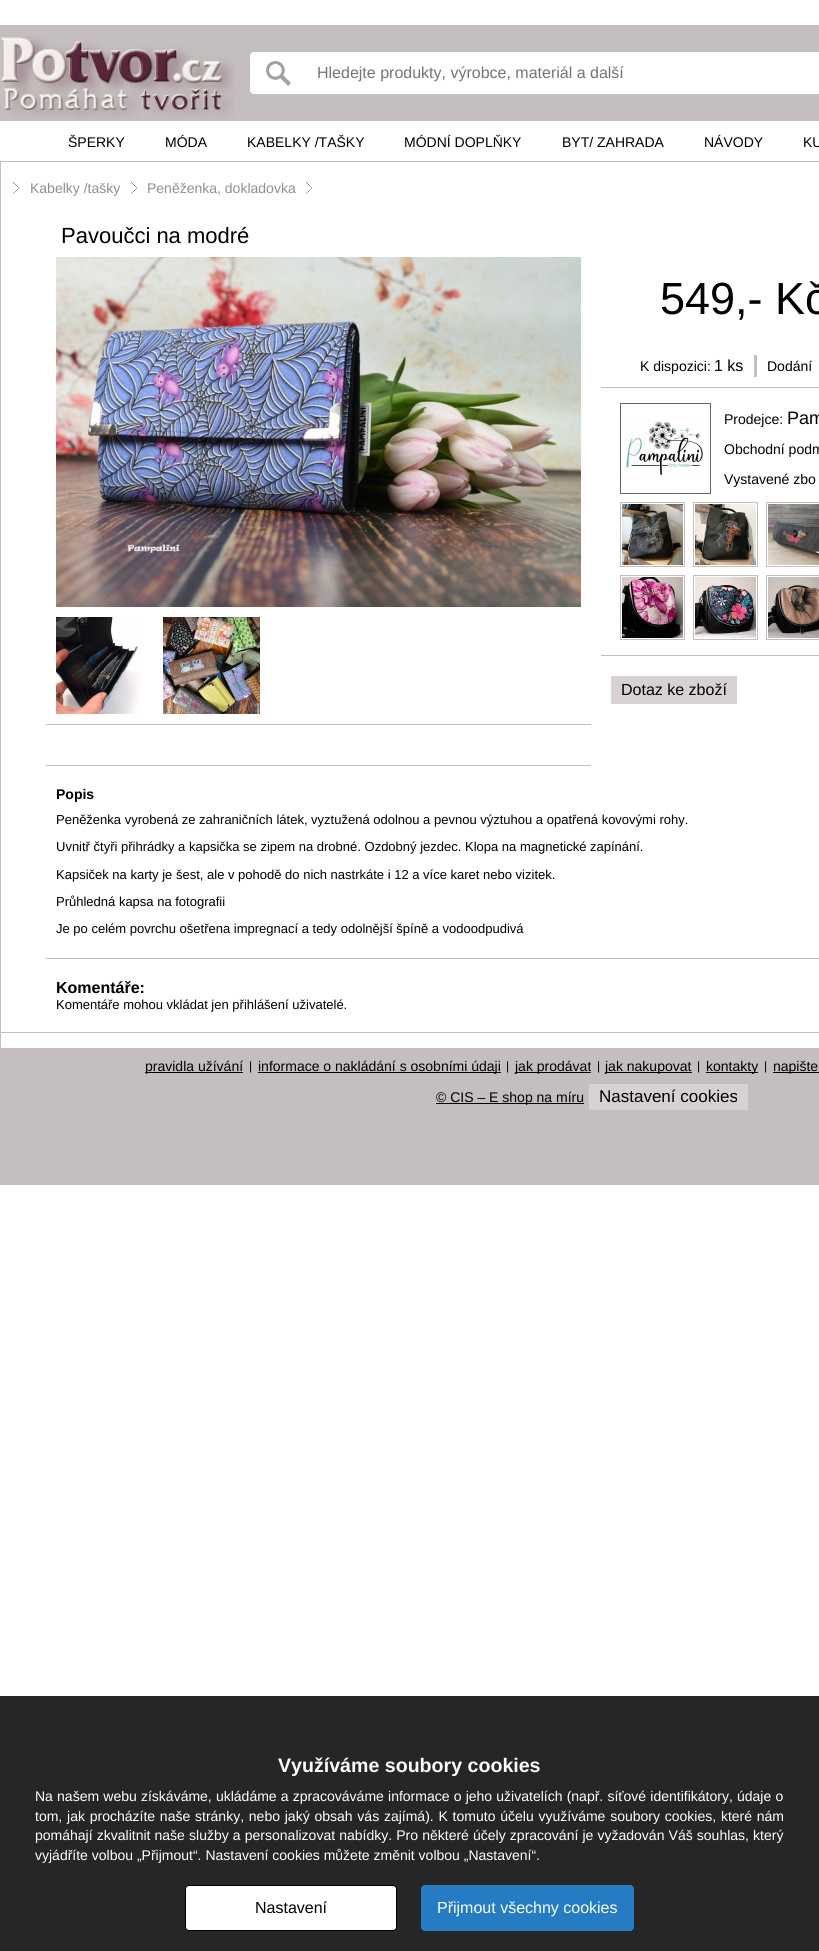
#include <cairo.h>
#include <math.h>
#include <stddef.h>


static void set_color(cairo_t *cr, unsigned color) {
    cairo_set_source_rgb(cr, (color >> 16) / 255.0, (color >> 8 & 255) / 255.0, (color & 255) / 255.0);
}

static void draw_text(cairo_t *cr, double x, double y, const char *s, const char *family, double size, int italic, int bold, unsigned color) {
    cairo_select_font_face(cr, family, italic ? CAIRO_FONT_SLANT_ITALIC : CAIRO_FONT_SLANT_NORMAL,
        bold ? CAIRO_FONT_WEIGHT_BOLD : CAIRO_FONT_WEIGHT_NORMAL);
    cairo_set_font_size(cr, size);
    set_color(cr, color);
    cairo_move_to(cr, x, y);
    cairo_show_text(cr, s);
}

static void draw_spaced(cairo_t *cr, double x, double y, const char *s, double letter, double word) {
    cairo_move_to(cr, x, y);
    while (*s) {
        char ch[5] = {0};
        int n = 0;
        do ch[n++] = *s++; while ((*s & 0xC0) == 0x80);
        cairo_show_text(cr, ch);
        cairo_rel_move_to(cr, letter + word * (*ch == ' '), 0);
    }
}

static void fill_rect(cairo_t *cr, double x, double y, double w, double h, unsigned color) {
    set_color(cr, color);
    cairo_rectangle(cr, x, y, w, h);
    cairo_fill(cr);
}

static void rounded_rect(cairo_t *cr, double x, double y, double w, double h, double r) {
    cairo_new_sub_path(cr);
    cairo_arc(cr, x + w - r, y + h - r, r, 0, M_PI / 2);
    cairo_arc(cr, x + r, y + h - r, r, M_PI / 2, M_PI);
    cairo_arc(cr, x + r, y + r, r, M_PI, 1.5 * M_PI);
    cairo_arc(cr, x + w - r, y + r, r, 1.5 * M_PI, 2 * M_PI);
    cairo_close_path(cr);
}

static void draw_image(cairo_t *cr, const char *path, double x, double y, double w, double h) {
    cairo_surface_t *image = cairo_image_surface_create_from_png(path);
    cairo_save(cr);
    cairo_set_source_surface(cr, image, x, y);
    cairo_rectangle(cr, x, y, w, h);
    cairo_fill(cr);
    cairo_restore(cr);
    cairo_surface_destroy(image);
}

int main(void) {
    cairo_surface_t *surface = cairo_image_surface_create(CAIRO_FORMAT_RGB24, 819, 1951);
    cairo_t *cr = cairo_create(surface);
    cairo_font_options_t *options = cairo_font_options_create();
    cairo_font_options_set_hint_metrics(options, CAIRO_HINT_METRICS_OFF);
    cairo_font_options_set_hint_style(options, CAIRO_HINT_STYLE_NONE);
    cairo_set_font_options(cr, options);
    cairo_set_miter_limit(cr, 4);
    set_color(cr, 0xFFFFFF);
    cairo_paint(cr);
    fill_rect(cr, 0, 25, 819, 96, 0xC4BEBE);
    draw_image(cr, "assets/img1.png", 0, 36, 235, 84);
    set_color(cr, 0xFFFFFF);
    rounded_rect(cr, 250, 52, 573, 42, 4);
    cairo_fill(cr);
    draw_image(cr, "assets/img2.png", 266, 61, 25, 25);
    draw_text(cr, 317, 78, "Hledejte produkty, výrobce, materiál a další", "Liberation Sans", 16, 0, 0, 0x757575);
    draw_text(cr, 68, 147, "ŠPERKY", "Arimo", 14, 0, 0, 0x000000);
    draw_text(cr, 165, 147, "MÓDA", "Arimo", 14, 0, 0, 0x000000);
    draw_text(cr, 247, 147, "KABELKY /TAŠKY", "Arimo", 14, 0, 0, 0x000000);
    draw_text(cr, 404, 147, "MÓDNÍ DOPLŇKY", "Arimo", 14, 0, 0, 0x000000);
    draw_text(cr, 562, 147, "BYT/ ZAHRADA", "Arimo", 14, 0, 0, 0x000000);
    draw_text(cr, 704, 147, "NÁVODY", "Arimo", 14, 0, 0, 0x000000);
    draw_text(cr, 803, 147, "KU", "Arimo", 14, 0, 0, 0x000000);
    cairo_rectangle(cr, 0.5, 161.5, 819, 871);
    set_color(cr, 0xC4BEBE);
    cairo_set_line_width(cr, 1);
    cairo_stroke(cr);
    draw_image(cr, "assets/img3.png", 13, 182, 6, 12);
    draw_text(cr, 30, 193, "Kabelky /tašky", "Arimo", 14, 0, 0, 0x918F8F);
    draw_image(cr, "assets/img3.png", 131, 182, 6, 12);
    draw_text(cr, 147, 193, "Peněženka, dokladovka", "Arimo", 14, 0, 0, 0x918F8F);
    draw_image(cr, "assets/img3.png", 306, 182, 6, 12);
    draw_text(cr, 61, 243, "Pavoučci na modré", "Arimo", 22, 0, 0, 0x000000);
    draw_image(cr, "assets/img4.png", 56, 257, 525, 350);
    draw_image(cr, "assets/img5.png", 56, 617, 86, 97);
    draw_image(cr, "assets/img6.png", 163, 617, 97, 97);
    fill_rect(cr, 46, 724, 545, 1, 0xC4BEBE);
    fill_rect(cr, 46, 765, 545, 1, 0xC4BEBE);
    fill_rect(cr, 601, 387, 218, 1, 0xC4BEBE);
    draw_text(cr, 660, 314, "549,- Kč", "Arimo", 45, 0, 0, 0x000000);
    draw_text(cr, 640, 371, "K dispozici:", "Arimo", 14, 0, 0, 0x000000);
    draw_text(cr, 714, 371, "1 ks", "Arimo", 16, 0, 0, 0x000000);
    fill_rect(cr, 754, 355, 3, 22, 0xC4BEBE);
    draw_text(cr, 767, 371, "Dodání", "Arimo", 14, 0, 0, 0x000000);
    fill_rect(cr, 601, 655, 218, 1, 0xC4BEBE);
    cairo_rectangle(cr, 620.5, 403.5, 90, 90);
    set_color(cr, 0x666666);
    cairo_stroke(cr);
    draw_image(cr, "assets/img7.png", 622, 421, 81, 54);
    draw_text(cr, 724, 424, "Prodejce:", "Arimo", 14, 0, 0, 0x000000);
    draw_text(cr, 787, 424, "Pam", "Arimo", 18, 0, 0, 0x000000);
    draw_text(cr, 724, 454, "Obchodní podm", "Arimo", 14, 0, 0, 0x000000);
    draw_text(cr, 724, 484, "Vystavené zbo", "Arimo", 14, 0, 0, 0x000000);
    cairo_rectangle(cr, 620.5, 502.5, 64, 64);
    set_color(cr, 0xC4BEBE);
    cairo_stroke(cr);
    draw_image(cr, "assets/img8.png", 622, 504, 61, 61);
    cairo_rectangle(cr, 693.5, 502.5, 64, 64);
    cairo_stroke(cr);
    draw_image(cr, "assets/img9.png", 695, 504, 61, 61);
    cairo_rectangle(cr, 766.5, 502.5, 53, 64);
    cairo_stroke(cr);
    draw_image(cr, "assets/img10.png", 768, 504, 51, 61);
    cairo_rectangle(cr, 620.5, 575.5, 64, 64);
    cairo_stroke(cr);
    draw_image(cr, "assets/img11.png", 622, 577, 61, 61);
    cairo_rectangle(cr, 693.5, 575.5, 64, 64);
    cairo_stroke(cr);
    draw_image(cr, "assets/img12.png", 695, 577, 61, 61);
    cairo_rectangle(cr, 766.5, 575.5, 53, 64);
    cairo_stroke(cr);
    draw_image(cr, "assets/img13.png", 768, 577, 51, 61);
    fill_rect(cr, 611, 676, 126, 28, 0xD5D2D1);
    draw_text(cr, 621, 695, "Dotaz ke zboží", "Arimo", 16, 0, 0, 0x000000);
    fill_rect(cr, 46, 958, 773, 1, 0xC4BEBE);
    draw_text(cr, 56, 799, "Popis", "Arimo", 14, 0, 1, 0x000000);
    draw_text(cr, 56, 824, "Peněženka vyrobená ze zahraničních látek, vyztužená odolnou a pevnou výztuhou a opatřená kovovými rohy.", "Arimo", 13, 0, 0, 0x000000);
    draw_text(cr, 56, 851, "Uvnitř čtyři přihrádky a kapsička se zipem na drobné. Ozdobný jezdec. Klopa na magnetické zapínání.", "Arimo", 13, 0, 0, 0x000000);
    draw_text(cr, 56, 879, "Kapsiček na karty je šest, ale v pohodě do nich nastrkáte i 12 a více karet nebo vizitek.", "Arimo", 13, 0, 0, 0x000000);
    draw_text(cr, 56, 906, "Průhledná kapsa na fotografii", "Arimo", 13, 0, 0, 0x000000);
    draw_text(cr, 56, 933, "Je po celém povrchu ošetřena impregnací a tedy odolnější špíně a vodoodpudivá", "Arimo", 13, 0, 0, 0x000000);
    draw_text(cr, 56, 993, "Komentáře:", "Arimo", 16, 0, 1, 0x000000);
    draw_text(cr, 56, 1009, "Komentáře mohou vkládat jen přihlášení uživatelé.", "Arimo", 13, 0, 0, 0x000000);
    fill_rect(cr, 0, 1048, 819, 137, 0xC4BEBE);
    fill_rect(cr, 0, 1033, 1, 15, 0xC4BEBE);
    fill_rect(cr, 145, 1072, 98, 1, 0x000000);
    draw_text(cr, 145, 1071, "pravidla užívání", "Arimo", 14, 0, 0, 0x000000);
    draw_text(cr, 249, 1070, "|", "Arimo", 12, 0, 0, 0x000000);
    fill_rect(cr, 258, 1072, 243, 1, 0x000000);
    draw_text(cr, 258, 1071, "informace o nakládání s osobními údaji", "Arimo", 14, 0, 0, 0x000000);
    draw_text(cr, 506, 1070, "|", "Arimo", 12, 0, 0, 0x000000);
    fill_rect(cr, 515, 1072, 76, 1, 0x000000);
    draw_text(cr, 515, 1071, "jak prodávat", "Arimo", 14, 0, 0, 0x000000);
    draw_text(cr, 597, 1070, "|", "Arimo", 12, 0, 0, 0x000000);
    fill_rect(cr, 605, 1072, 87, 1, 0x000000);
    draw_text(cr, 605, 1071, "jak nakupovat", "Arimo", 14, 0, 0, 0x000000);
    draw_text(cr, 697, 1070, "|", "Arimo", 12, 0, 0, 0x000000);
    fill_rect(cr, 706, 1072, 52, 1, 0x000000);
    draw_text(cr, 706, 1071, "kontakty", "Arimo", 14, 0, 0, 0x000000);
    draw_text(cr, 764, 1070, "|", "Arimo", 12, 0, 0, 0x000000);
    fill_rect(cr, 773, 1072, 46, 1, 0x000000);
    draw_text(cr, 773, 1071, "napište", "Arimo", 14, 0, 0, 0x000000);
    fill_rect(cr, 436, 1103, 148, 1, 0x000000);
    draw_text(cr, 436, 1102, "© CIS – E shop na míru", "Arimo", 14, 0, 0, 0x000000);
    fill_rect(cr, 589, 1084, 159, 26, 0xD5D2D1);
    draw_text(cr, 599, 1102, "Nastavení cookies", "Liberation Sans", 17, 0, 0, 0x000000);
    fill_rect(cr, 0, 1696, 819, 255, 0x262626);
    draw_text(cr, 278, 1772, "Využíváme soubory cookies", "Arimo", 19.6, 0, 1, 0xFFFFFF);
    cairo_select_font_face(cr, "Arimo", CAIRO_FONT_SLANT_NORMAL, CAIRO_FONT_WEIGHT_NORMAL);
    cairo_set_font_size(cr, 14);
    draw_spaced(cr, 35, 1801, "Na našem webu získáváme, ukládáme a zpracováváme informace o jeho uživatelích (např. síťové identifikátory, údaje o", 0, 0.3);
    draw_spaced(cr, 35, 1821, "tom, jak procházíte naše stránky, nebo jaký obsah vás zajímá). K tomuto účelu využíváme soubory cookies, které nám", 0, 0.9);
    draw_spaced(cr, 35, 1840, "pomáhají zkvalitnit naše služby a personalizovat nabídky. Pro některé účely zpracování je vyžadován Váš souhlas, který", 0, 0.25);
    draw_text(cr, 35, 1860, "vyjádříte volbou „Přijmout“. Nastavení cookies můžete změnit volbou „Nastavení“.", "Arimo", 14, 0, 0, 0xFFFFFF);
    rounded_rect(cr, 185.5, 1885.5, 211, 45, 3.5);
    cairo_fill_preserve(cr);
    set_color(cr, 0x000000);
    cairo_stroke(cr);
    draw_text(cr, 255, 1913, "Nastavení", "Arimo", 16, 0, 0, 0x000000);
    set_color(cr, 0x267CC2);
    rounded_rect(cr, 421.5, 1885.5, 212, 45, 3.5);
    cairo_fill_preserve(cr);
    cairo_stroke(cr);
    draw_text(cr, 437, 1913, "Přijmout všechny cookies", "Arimo", 16, 0, 0, 0xFFFFFF);
    cairo_surface_write_to_png(surface, "output.png");
    cairo_font_options_destroy(options);
    cairo_destroy(cr);
    cairo_surface_destroy(surface);
    return 0;
}
